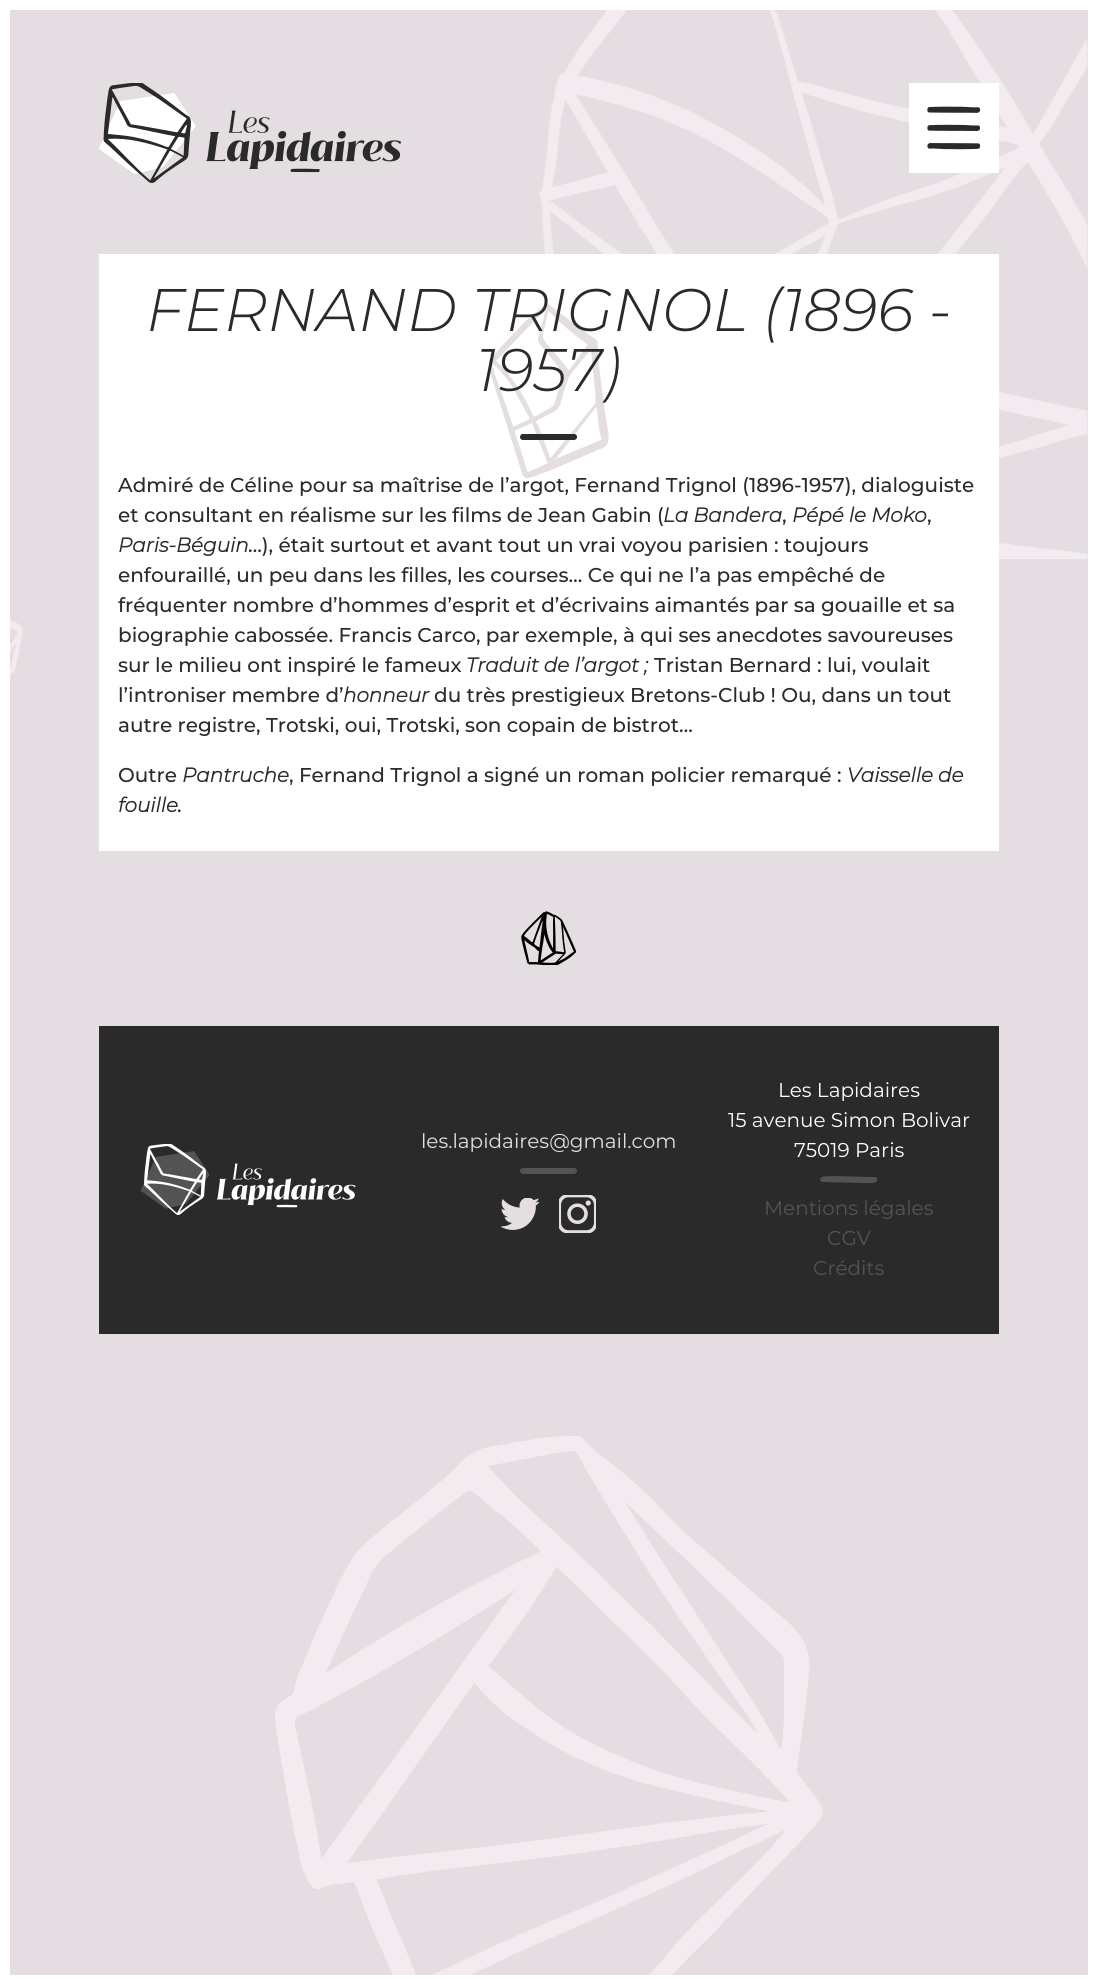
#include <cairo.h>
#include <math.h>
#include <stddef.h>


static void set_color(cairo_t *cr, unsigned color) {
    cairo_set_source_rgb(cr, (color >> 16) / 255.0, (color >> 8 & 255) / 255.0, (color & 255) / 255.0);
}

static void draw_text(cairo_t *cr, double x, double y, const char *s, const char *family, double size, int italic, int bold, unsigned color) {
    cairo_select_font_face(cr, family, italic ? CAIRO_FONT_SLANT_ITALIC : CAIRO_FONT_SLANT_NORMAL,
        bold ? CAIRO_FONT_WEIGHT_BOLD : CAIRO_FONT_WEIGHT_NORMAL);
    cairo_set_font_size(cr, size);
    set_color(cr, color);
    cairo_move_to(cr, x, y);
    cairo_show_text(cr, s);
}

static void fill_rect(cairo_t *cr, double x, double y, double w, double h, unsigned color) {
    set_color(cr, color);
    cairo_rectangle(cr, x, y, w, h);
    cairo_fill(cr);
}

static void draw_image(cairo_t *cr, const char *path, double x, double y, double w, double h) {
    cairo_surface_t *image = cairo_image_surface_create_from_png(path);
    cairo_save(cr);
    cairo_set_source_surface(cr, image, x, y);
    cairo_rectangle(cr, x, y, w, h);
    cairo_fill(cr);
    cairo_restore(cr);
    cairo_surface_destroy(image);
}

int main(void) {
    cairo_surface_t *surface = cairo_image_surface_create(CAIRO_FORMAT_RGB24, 1097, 1984);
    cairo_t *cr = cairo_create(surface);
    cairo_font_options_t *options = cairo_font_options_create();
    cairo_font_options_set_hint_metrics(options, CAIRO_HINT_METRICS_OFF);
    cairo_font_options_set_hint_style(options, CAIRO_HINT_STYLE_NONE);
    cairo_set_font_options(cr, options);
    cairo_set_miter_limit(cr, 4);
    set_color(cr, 0xE4DDE1);
    cairo_paint(cr);
    fill_rect(cr, 0, 0, 10, 1984, 0xFFFFFF);
    fill_rect(cr, 10, 0, 1078, 10, 0xFFFFFF);
    fill_rect(cr, 1088, 0, 9, 1975, 0xFFFFFF);
    draw_image(cr, "assets/img1.png", 539, 10, 549, 549);
    draw_image(cr, "assets/img2.png", 99, 83, 302, 100);
    fill_rect(cr, 909, 83, 90, 90, 0xFFFFFF);
    draw_image(cr, "assets/img3.png", 927, 106, 54, 44);
    fill_rect(cr, 99, 254, 900, 597, 0xFFFFFF);
    draw_image(cr, "assets/img4.png", 489, 304, 120, 174);
    draw_text(cr, 146, 331, "FERNAND TRIGNOL (1896 -", "Montserrat Light", 60, 1, 0, 0x2B2A2B);
    draw_text(cr, 476, 391, "1957)", "Montserrat Light", 60, 1, 0, 0x2B2A2B);
    cairo_save(cr);
    cairo_rectangle(cr, 520, 434, 58, 6);
    cairo_clip(cr);
    cairo_new_path(cr);
    cairo_move_to(cr, 577, 437);
    cairo_curve_to(cr, 577, 436, 577, 435, 575, 434);
    cairo_line_to(cr, 569, 434);
    cairo_curve_to(cr, 562, 434, 525, 432, 522, 434);
    cairo_curve_to(cr, 520, 435, 520, 437, 520, 438);
    cairo_line_to(cr, 522, 440);
    cairo_line_to(cr, 566, 440);
    cairo_curve_to(cr, 568, 440, 577, 442, 577, 437);
    cairo_close_path(cr);
    cairo_fill(cr);
    cairo_restore(cr);
    draw_text(cr, 118, 492, "Admiré de Céline pour sa maîtrise de l’argot, Fernand Trignol (1896-1957), dialoguiste", "Montserrat Medium", 20, 0, 0, 0x2B2A2B);
    draw_text(cr, 118, 522, "et consultant en réalisme sur les films de Jean Gabin (", "Montserrat Medium", 20, 0, 0, 0x2B2A2B);
    draw_text(cr, 663, 522, "La Bandera", "Montserrat", 20, 1, 1, 0x2B2A2B);
    draw_text(cr, 782, 522, ",", "Montserrat Medium", 20, 0, 0, 0x2B2A2B);
    draw_text(cr, 792, 522, "Pépé le Moko", "Montserrat", 20, 1, 1, 0x2B2A2B);
    draw_text(cr, 927, 522, ",", "Montserrat Medium", 20, 0, 0, 0x2B2A2B);
    draw_text(cr, 118, 552, "Paris-Béguin", "Montserrat", 20, 1, 1, 0x2B2A2B);
    draw_text(cr, 248, 552, "…), était surtout et avant tout un vrai voyou parisien : toujours", "Montserrat Medium", 20, 0, 0, 0x2B2A2B);
    draw_text(cr, 118, 582, "enfouraillé, un peu dans les filles, les courses… Ce qui ne l’a pas empêché de", "Montserrat Medium", 20, 0, 0, 0x2B2A2B);
    draw_text(cr, 118, 612, "fréquenter nombre d’hommes d’esprit et d’écrivains aimantés par sa gouaille et sa", "Montserrat Medium", 20, 0, 0, 0x2B2A2B);
    draw_text(cr, 118, 642, "biographie cabossée. Francis Carco, par exemple, à qui ses anecdotes savoureuses", "Montserrat Medium", 20, 0, 0, 0x2B2A2B);
    draw_text(cr, 118, 672, "sur le milieu ont inspiré le fameux", "Montserrat Medium", 20, 0, 0, 0x2B2A2B);
    draw_text(cr, 466, 672, "Traduit de l’argot ;", "Montserrat", 20, 1, 1, 0x2B2A2B);
    draw_text(cr, 654, 672, "Tristan Bernard : lui, voulait", "Montserrat Medium", 20, 0, 0, 0x2B2A2B);
    draw_text(cr, 118, 702, "l’introniser membre d’", "Montserrat Medium", 20, 0, 0, 0x2B2A2B);
    draw_text(cr, 343, 702, "honneur", "Montserrat", 20, 1, 1, 0x2B2A2B);
    draw_text(cr, 434, 702, "du très prestigieux Bretons-Club ! Ou, dans un tout", "Montserrat Medium", 20, 0, 0, 0x2B2A2B);
    draw_text(cr, 118, 732, "autre registre, Trotski, oui, Trotski, son copain de bistrot…", "Montserrat Medium", 20, 0, 0, 0x2B2A2B);
    draw_text(cr, 118, 782, "Outre", "Montserrat Medium", 20, 0, 0, 0x2B2A2B);
    draw_text(cr, 182, 782, "Pantruche", "Montserrat", 20, 1, 1, 0x2B2A2B);
    draw_text(cr, 289, 782, ", Fernand Trignol a signé un roman policier remarqué :", "Montserrat Medium", 20, 0, 0, 0x2B2A2B);
    draw_text(cr, 847, 782, "Vaisselle de", "Montserrat", 20, 1, 1, 0x2B2A2B);
    draw_text(cr, 118, 812, "fouille", "Montserrat", 20, 1, 1, 0x2B2A2B);
    draw_text(cr, 177, 812, ".", "Montserrat Medium", 20, 0, 0, 0x2B2A2B);
    draw_image(cr, "assets/img5.png", 10, 619, 13, 56);
    draw_image(cr, "assets/img6.png", 521, 911, 55, 54);
    fill_rect(cr, 99, 1026, 900, 308, 0x2B2A2B);
    draw_image(cr, "assets/img7.png", 140, 1144, 216, 71);
    draw_text(cr, 421, 1148, "les.lapidaires@gmail.com", "Montserrat", 20, 0, 0, 0xE4DDE1);
    cairo_save(cr);
    cairo_rectangle(cr, 520, 1168, 58, 6);
    cairo_clip(cr);
    set_color(cr, 0x545354);
    cairo_new_path(cr);
    cairo_move_to(cr, 577, 1171);
    cairo_curve_to(cr, 577, 1170, 577, 1169, 575, 1168);
    cairo_line_to(cr, 569, 1168);
    cairo_curve_to(cr, 562, 1168, 525, 1166, 522, 1168);
    cairo_curve_to(cr, 520, 1169, 520, 1170, 520, 1172);
    cairo_line_to(cr, 522, 1174);
    cairo_line_to(cr, 566, 1174);
    cairo_curve_to(cr, 568, 1174, 577, 1176, 577, 1171);
    cairo_close_path(cr);
    cairo_fill(cr);
    cairo_restore(cr);
    draw_image(cr, "assets/img8.png", 501, 1198, 38, 32);
    draw_image(cr, "assets/img9.png", 559, 1195, 37, 38);
    draw_text(cr, 778, 1097, "Les Lapidaires", "Montserrat", 20, 0, 0, 0xFFFFFF);
    draw_text(cr, 728, 1127, "15 avenue Simon Bolivar", "Montserrat", 20, 0, 0, 0xFFFFFF);
    draw_text(cr, 794, 1157, "75019 Paris", "Montserrat", 20, 0, 0, 0xFFFFFF);
    cairo_save(cr);
    cairo_rectangle(cr, 820, 1176, 58, 7);
    cairo_clip(cr);
    set_color(cr, 0x545354);
    cairo_new_path(cr);
    cairo_move_to(cr, 877, 1180);
    cairo_curve_to(cr, 877, 1178, 877, 1177, 875, 1177);
    cairo_line_to(cr, 869, 1177);
    cairo_curve_to(cr, 862, 1177, 825, 1175, 822, 1177);
    cairo_curve_to(cr, 820, 1178, 820, 1179, 820, 1180);
    cairo_line_to(cr, 822, 1182);
    cairo_line_to(cr, 866, 1183);
    cairo_curve_to(cr, 868, 1183, 877, 1184, 877, 1180);
    cairo_close_path(cr);
    cairo_fill(cr);
    cairo_restore(cr);
    draw_text(cr, 764, 1215, "Mentions légales", "Montserrat", 20, 0, 0, 0x545354);
    draw_text(cr, 827, 1245, "CGV", "Montserrat", 20, 0, 0, 0x545354);
    draw_text(cr, 813, 1275, "Crédits", "Montserrat", 20, 0, 0, 0x545354);
    draw_image(cr, "assets/img10.png", 275, 1436, 548, 539);
    fill_rect(cr, 10, 1975, 1087, 9, 0xFFFFFF);
    cairo_surface_write_to_png(surface, "output.png");
    cairo_font_options_destroy(options);
    cairo_destroy(cr);
    cairo_surface_destroy(surface);
    return 0;
}
